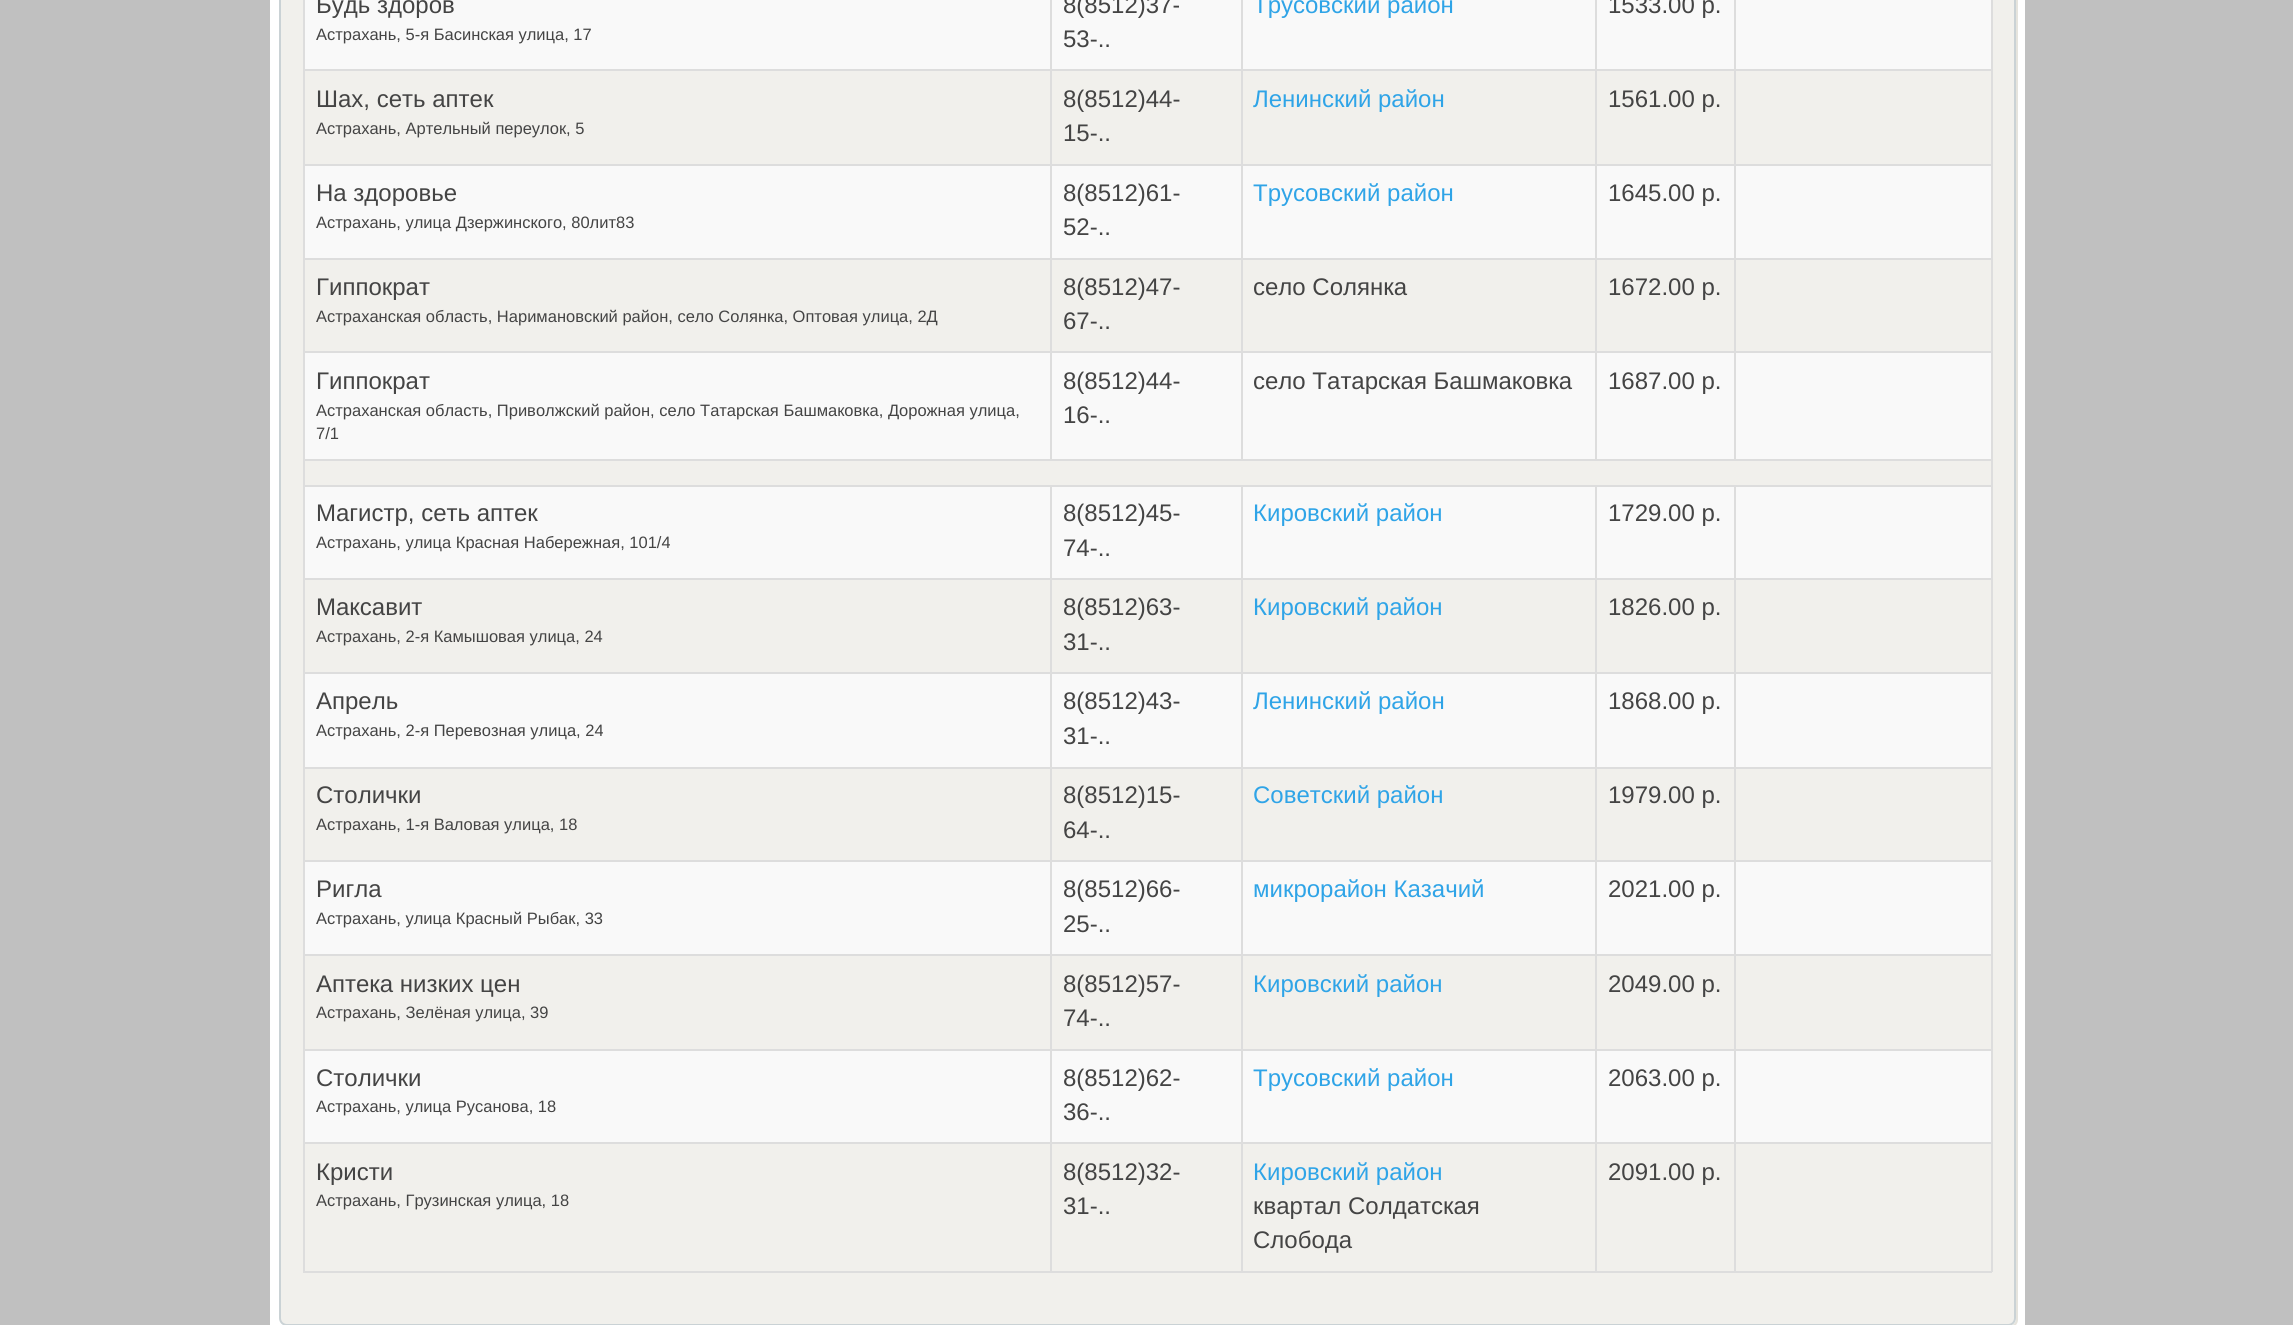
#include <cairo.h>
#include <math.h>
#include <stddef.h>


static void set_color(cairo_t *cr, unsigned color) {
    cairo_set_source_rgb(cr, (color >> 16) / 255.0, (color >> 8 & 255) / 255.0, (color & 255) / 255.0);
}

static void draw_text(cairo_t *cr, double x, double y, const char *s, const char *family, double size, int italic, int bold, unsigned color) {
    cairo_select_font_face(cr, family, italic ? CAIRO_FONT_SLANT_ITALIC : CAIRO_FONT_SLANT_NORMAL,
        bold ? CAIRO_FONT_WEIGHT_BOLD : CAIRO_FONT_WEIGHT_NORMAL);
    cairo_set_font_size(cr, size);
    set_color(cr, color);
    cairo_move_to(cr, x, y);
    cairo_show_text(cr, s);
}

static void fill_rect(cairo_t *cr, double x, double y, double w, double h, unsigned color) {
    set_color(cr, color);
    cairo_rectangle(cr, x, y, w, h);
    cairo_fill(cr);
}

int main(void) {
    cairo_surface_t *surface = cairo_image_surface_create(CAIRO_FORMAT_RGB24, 2293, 1325);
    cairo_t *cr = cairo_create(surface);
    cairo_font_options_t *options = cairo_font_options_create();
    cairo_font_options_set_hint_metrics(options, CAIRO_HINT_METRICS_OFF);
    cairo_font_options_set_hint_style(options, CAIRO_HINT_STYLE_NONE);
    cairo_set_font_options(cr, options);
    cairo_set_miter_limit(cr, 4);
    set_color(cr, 0xC0C0C0);
    cairo_paint(cr);
    fill_rect(cr, 270, 0, 1755, 1325, 0xFFFFFF);
    set_color(cr, 0xE6E4DD);
    cairo_new_path(cr);
    cairo_move_to(cr, 283, 1325);
    cairo_curve_to(cr, 284, 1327, 286, 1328, 289, 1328);
    cairo_line_to(cr, 2010, 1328);
    cairo_curve_to(cr, 2014, 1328, 2018, 1324, 2018, 1320);
    cairo_line_to(cr, 2018, -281);
    cairo_curve_to(cr, 2018, -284, 2017, -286, 2015, -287);
    cairo_curve_to(cr, 2016, -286, 2016, -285, 2016, -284);
    cairo_line_to(cr, 2016, 1318);
    cairo_curve_to(cr, 2016, 1323, 2013, 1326, 2008, 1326);
    cairo_line_to(cr, 286, 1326);
    cairo_curve_to(cr, 285, 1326, 284, 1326, 283, 1325);
    cairo_close_path(cr);
    cairo_fill(cr);
    set_color(cr, 0xF1F0EC);
    cairo_new_path(cr);
    cairo_move_to(cr, 280, -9);
    cairo_line_to(cr, 2008, -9);
    cairo_curve_to(cr, 2012, -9, 2015, -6, 2015, -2);
    cairo_line_to(cr, 2015, 1318);
    cairo_curve_to(cr, 2015, 1322, 2012, 1325, 2008, 1325);
    cairo_line_to(cr, 287, 1325);
    cairo_curve_to(cr, 283, 1325, 280, 1322, 280, 1318);
    cairo_close_path(cr);
    cairo_fill_preserve(cr);
    set_color(cr, 0xCAD2D5);
    cairo_stroke(cr);
    fill_rect(cr, 1991, 0, 2, 1272, 0xDDDDDD);
    fill_rect(cr, 303, 1271, 1689, 2, 0xDDDDDD);
    fill_rect(cr, 303, 0, 2, 1272, 0xDDDDDD);
    fill_rect(cr, 305, 0, 745, 69, 0xF9F9F9);
    draw_text(cr, 316, 13, "Будь здоров", "Liberation Sans", 24, 0, 0, 0x444444);
    draw_text(cr, 316, 40, "Астрахань, 5-я Басинская улица, 17", "Liberation Sans", 16.5, 0, 0, 0x444444);
    fill_rect(cr, 1052, 0, 189, 69, 0xF9F9F9);
    fill_rect(cr, 1734, 69, 258, 2, 0xDDDDDD);
    fill_rect(cr, 1734, 164, 258, 2, 0xDDDDDD);
    fill_rect(cr, 1734, 258, 258, 2, 0xDDDDDD);
    fill_rect(cr, 1734, 351, 258, 2, 0xDDDDDD);
    fill_rect(cr, 303, 459, 1689, 2, 0xDDDDDD);
    fill_rect(cr, 1734, 351, 2, 110, 0xDDDDDD);
    fill_rect(cr, 1595, 351, 141, 2, 0xDDDDDD);
    fill_rect(cr, 1734, 258, 2, 95, 0xDDDDDD);
    fill_rect(cr, 1595, 258, 141, 2, 0xDDDDDD);
    fill_rect(cr, 1734, 164, 2, 96, 0xDDDDDD);
    fill_rect(cr, 1595, 164, 141, 2, 0xDDDDDD);
    fill_rect(cr, 1734, 69, 2, 96, 0xDDDDDD);
    fill_rect(cr, 1595, 69, 141, 2, 0xDDDDDD);
    fill_rect(cr, 1595, 351, 2, 110, 0xDDDDDD);
    fill_rect(cr, 1241, 351, 355, 2, 0xDDDDDD);
    fill_rect(cr, 1595, 258, 2, 95, 0xDDDDDD);
    fill_rect(cr, 1241, 258, 355, 2, 0xDDDDDD);
    fill_rect(cr, 1595, 164, 2, 96, 0xDDDDDD);
    fill_rect(cr, 1241, 164, 355, 2, 0xDDDDDD);
    fill_rect(cr, 1595, 69, 2, 96, 0xDDDDDD);
    fill_rect(cr, 1241, 69, 355, 2, 0xDDDDDD);
    fill_rect(cr, 1241, 351, 2, 110, 0xDDDDDD);
    fill_rect(cr, 1050, 351, 192, 2, 0xDDDDDD);
    fill_rect(cr, 1241, 258, 2, 95, 0xDDDDDD);
    fill_rect(cr, 1050, 258, 192, 2, 0xDDDDDD);
    fill_rect(cr, 1241, 164, 2, 96, 0xDDDDDD);
    fill_rect(cr, 1050, 164, 192, 2, 0xDDDDDD);
    fill_rect(cr, 1241, 69, 2, 96, 0xDDDDDD);
    fill_rect(cr, 1050, 69, 192, 2, 0xDDDDDD);
    fill_rect(cr, 1050, 351, 2, 110, 0xDDDDDD);
    fill_rect(cr, 303, 351, 749, 2, 0xDDDDDD);
    fill_rect(cr, 1050, 258, 2, 95, 0xDDDDDD);
    fill_rect(cr, 303, 258, 749, 2, 0xDDDDDD);
    fill_rect(cr, 1050, 164, 2, 96, 0xDDDDDD);
    fill_rect(cr, 303, 164, 749, 2, 0xDDDDDD);
    fill_rect(cr, 1050, 69, 2, 96, 0xDDDDDD);
    fill_rect(cr, 303, 69, 749, 2, 0xDDDDDD);
    fill_rect(cr, 1050, 0, 2, 71, 0xDDDDDD);
    draw_text(cr, 1063, 13, "8(8512)37-", "Liberation Sans", 24, 0, 0, 0x444444);
    draw_text(cr, 1063, 47, "53-..", "Liberation Sans", 24, 0, 0, 0x444444);
    fill_rect(cr, 1243, 0, 352, 69, 0xF9F9F9);
    fill_rect(cr, 1241, 0, 2, 71, 0xDDDDDD);
    draw_text(cr, 1253, 13, "Трусовский район", "Liberation Sans", 24, 0, 0, 0x2FA4E7);
    fill_rect(cr, 1597, 0, 137, 69, 0xF9F9F9);
    fill_rect(cr, 1595, 0, 2, 71, 0xDDDDDD);
    draw_text(cr, 1608, 13, "1533.00 р.", "Liberation Sans", 24, 0, 0, 0x444444);
    fill_rect(cr, 1736, 0, 255, 69, 0xF9F9F9);
    fill_rect(cr, 1734, 0, 2, 71, 0xDDDDDD);
    draw_text(cr, 316, 107, "Шах, сеть аптек", "Liberation Sans", 24, 0, 0, 0x444444);
    draw_text(cr, 316, 134, "Астрахань, Артельный переулок, 5", "Liberation Sans", 16.5, 0, 0, 0x444444);
    draw_text(cr, 1063, 107, "8(8512)44-", "Liberation Sans", 24, 0, 0, 0x444444);
    draw_text(cr, 1063, 141, "15-..", "Liberation Sans", 24, 0, 0, 0x444444);
    draw_text(cr, 1253, 107, "Ленинский район", "Liberation Sans", 24, 0, 0, 0x2FA4E7);
    draw_text(cr, 1608, 107, "1561.00 р.", "Liberation Sans", 24, 0, 0, 0x444444);
    fill_rect(cr, 305, 166, 745, 92, 0xF9F9F9);
    draw_text(cr, 316, 201, "На здоровье", "Liberation Sans", 24, 0, 0, 0x444444);
    draw_text(cr, 316, 228, "Астрахань, улица Дзержинского, 80лит83", "Liberation Sans", 16.5, 0, 0, 0x444444);
    fill_rect(cr, 1052, 166, 189, 92, 0xF9F9F9);
    draw_text(cr, 1063, 201, "8(8512)61-", "Liberation Sans", 24, 0, 0, 0x444444);
    draw_text(cr, 1063, 235, "52-..", "Liberation Sans", 24, 0, 0, 0x444444);
    fill_rect(cr, 1243, 166, 352, 92, 0xF9F9F9);
    draw_text(cr, 1253, 201, "Трусовский район", "Liberation Sans", 24, 0, 0, 0x2FA4E7);
    fill_rect(cr, 1597, 166, 137, 92, 0xF9F9F9);
    draw_text(cr, 1608, 201, "1645.00 р.", "Liberation Sans", 24, 0, 0, 0x444444);
    fill_rect(cr, 1736, 166, 255, 92, 0xF9F9F9);
    draw_text(cr, 316, 295, "Гиппократ", "Liberation Sans", 24, 0, 0, 0x444444);
    draw_text(cr, 316, 322, "Астраханская область, Наримановский район, село Солянка, Оптовая улица, 2Д", "Liberation Sans", 16.5, 0, 0, 0x444444);
    draw_text(cr, 1063, 295, "8(8512)47-", "Liberation Sans", 24, 0, 0, 0x444444);
    draw_text(cr, 1063, 329, "67-..", "Liberation Sans", 24, 0, 0, 0x444444);
    draw_text(cr, 1253, 295, "село Солянка", "Liberation Sans", 24, 0, 0, 0x444444);
    draw_text(cr, 1608, 295, "1672.00 р.", "Liberation Sans", 24, 0, 0, 0x444444);
    fill_rect(cr, 305, 353, 745, 106, 0xF9F9F9);
    draw_text(cr, 316, 389, "Гиппократ", "Liberation Sans", 24, 0, 0, 0x444444);
    draw_text(cr, 316, 416, "Астраханская область, Приволжский район, село Татарская Башмаковка, Дорожная улица,", "Liberation Sans", 16.5, 0, 0, 0x444444);
    draw_text(cr, 316, 439, "7/1", "Liberation Sans", 16.5, 0, 0, 0x444444);
    fill_rect(cr, 1052, 353, 189, 106, 0xF9F9F9);
    draw_text(cr, 1063, 389, "8(8512)44-", "Liberation Sans", 24, 0, 0, 0x444444);
    draw_text(cr, 1063, 423, "16-..", "Liberation Sans", 24, 0, 0, 0x444444);
    fill_rect(cr, 1243, 353, 352, 106, 0xF9F9F9);
    draw_text(cr, 1253, 389, "село Татарская Башмаковка", "Liberation Sans", 24, 0, 0, 0x444444);
    fill_rect(cr, 1597, 353, 137, 106, 0xF9F9F9);
    draw_text(cr, 1608, 389, "1687.00 р.", "Liberation Sans", 24, 0, 0, 0x444444);
    fill_rect(cr, 1736, 353, 255, 106, 0xF9F9F9);
    fill_rect(cr, 305, 487, 745, 91, 0xF9F9F9);
    fill_rect(cr, 1734, 485, 258, 2, 0xDDDDDD);
    fill_rect(cr, 1734, 578, 258, 2, 0xDDDDDD);
    fill_rect(cr, 1734, 672, 258, 2, 0xDDDDDD);
    fill_rect(cr, 1734, 767, 258, 2, 0xDDDDDD);
    fill_rect(cr, 1734, 860, 258, 2, 0xDDDDDD);
    fill_rect(cr, 1734, 954, 258, 2, 0xDDDDDD);
    fill_rect(cr, 1734, 1049, 258, 2, 0xDDDDDD);
    fill_rect(cr, 1734, 1142, 258, 2, 0xDDDDDD);
    fill_rect(cr, 1734, 1142, 2, 130, 0xDDDDDD);
    fill_rect(cr, 1595, 1142, 141, 2, 0xDDDDDD);
    fill_rect(cr, 1734, 1049, 2, 94, 0xDDDDDD);
    fill_rect(cr, 1595, 1049, 141, 2, 0xDDDDDD);
    fill_rect(cr, 1734, 954, 2, 96, 0xDDDDDD);
    fill_rect(cr, 1595, 954, 141, 2, 0xDDDDDD);
    fill_rect(cr, 1734, 860, 2, 96, 0xDDDDDD);
    fill_rect(cr, 1595, 860, 141, 2, 0xDDDDDD);
    fill_rect(cr, 1734, 767, 2, 94, 0xDDDDDD);
    fill_rect(cr, 1595, 767, 141, 2, 0xDDDDDD);
    fill_rect(cr, 1734, 672, 2, 96, 0xDDDDDD);
    fill_rect(cr, 1595, 672, 141, 2, 0xDDDDDD);
    fill_rect(cr, 1734, 578, 2, 96, 0xDDDDDD);
    fill_rect(cr, 1595, 578, 141, 2, 0xDDDDDD);
    fill_rect(cr, 1734, 485, 2, 94, 0xDDDDDD);
    fill_rect(cr, 1595, 485, 141, 2, 0xDDDDDD);
    fill_rect(cr, 1595, 1142, 2, 130, 0xDDDDDD);
    fill_rect(cr, 1241, 1142, 355, 2, 0xDDDDDD);
    fill_rect(cr, 1595, 1049, 2, 94, 0xDDDDDD);
    fill_rect(cr, 1241, 1049, 355, 2, 0xDDDDDD);
    fill_rect(cr, 1595, 954, 2, 96, 0xDDDDDD);
    fill_rect(cr, 1241, 954, 355, 2, 0xDDDDDD);
    fill_rect(cr, 1595, 860, 2, 96, 0xDDDDDD);
    fill_rect(cr, 1241, 860, 355, 2, 0xDDDDDD);
    fill_rect(cr, 1595, 767, 2, 94, 0xDDDDDD);
    fill_rect(cr, 1241, 767, 355, 2, 0xDDDDDD);
    fill_rect(cr, 1595, 672, 2, 96, 0xDDDDDD);
    fill_rect(cr, 1241, 672, 355, 2, 0xDDDDDD);
    fill_rect(cr, 1595, 578, 2, 96, 0xDDDDDD);
    fill_rect(cr, 1241, 578, 355, 2, 0xDDDDDD);
    fill_rect(cr, 1595, 485, 2, 94, 0xDDDDDD);
    fill_rect(cr, 1241, 485, 355, 2, 0xDDDDDD);
    fill_rect(cr, 1241, 1142, 2, 130, 0xDDDDDD);
    fill_rect(cr, 1050, 1142, 192, 2, 0xDDDDDD);
    fill_rect(cr, 1241, 1049, 2, 94, 0xDDDDDD);
    fill_rect(cr, 1050, 1049, 192, 2, 0xDDDDDD);
    fill_rect(cr, 1241, 954, 2, 96, 0xDDDDDD);
    fill_rect(cr, 1050, 954, 192, 2, 0xDDDDDD);
    fill_rect(cr, 1241, 860, 2, 96, 0xDDDDDD);
    fill_rect(cr, 1050, 860, 192, 2, 0xDDDDDD);
    fill_rect(cr, 1241, 767, 2, 94, 0xDDDDDD);
    fill_rect(cr, 1050, 767, 192, 2, 0xDDDDDD);
    fill_rect(cr, 1241, 672, 2, 96, 0xDDDDDD);
    fill_rect(cr, 1050, 672, 192, 2, 0xDDDDDD);
    fill_rect(cr, 1241, 578, 2, 96, 0xDDDDDD);
    fill_rect(cr, 1050, 578, 192, 2, 0xDDDDDD);
    fill_rect(cr, 1241, 485, 2, 94, 0xDDDDDD);
    fill_rect(cr, 1050, 485, 192, 2, 0xDDDDDD);
    fill_rect(cr, 1050, 1142, 2, 130, 0xDDDDDD);
    fill_rect(cr, 303, 1142, 749, 2, 0xDDDDDD);
    fill_rect(cr, 1050, 1049, 2, 94, 0xDDDDDD);
    fill_rect(cr, 303, 1049, 749, 2, 0xDDDDDD);
    fill_rect(cr, 1050, 954, 2, 96, 0xDDDDDD);
    fill_rect(cr, 303, 954, 749, 2, 0xDDDDDD);
    fill_rect(cr, 1050, 860, 2, 96, 0xDDDDDD);
    fill_rect(cr, 303, 860, 749, 2, 0xDDDDDD);
    fill_rect(cr, 1050, 767, 2, 94, 0xDDDDDD);
    fill_rect(cr, 303, 767, 749, 2, 0xDDDDDD);
    fill_rect(cr, 1050, 672, 2, 96, 0xDDDDDD);
    fill_rect(cr, 303, 672, 749, 2, 0xDDDDDD);
    fill_rect(cr, 1050, 578, 2, 96, 0xDDDDDD);
    fill_rect(cr, 303, 578, 749, 2, 0xDDDDDD);
    fill_rect(cr, 1050, 485, 2, 94, 0xDDDDDD);
    fill_rect(cr, 303, 485, 749, 2, 0xDDDDDD);
    draw_text(cr, 316, 521, "Магистр, сеть аптек", "Liberation Sans", 24, 0, 0, 0x444444);
    draw_text(cr, 316, 548, "Астрахань, улица Красная Набережная, 101/4", "Liberation Sans", 16.5, 0, 0, 0x444444);
    fill_rect(cr, 1052, 487, 189, 91, 0xF9F9F9);
    draw_text(cr, 1063, 521, "8(8512)45-", "Liberation Sans", 24, 0, 0, 0x444444);
    draw_text(cr, 1063, 556, "74-..", "Liberation Sans", 24, 0, 0, 0x444444);
    fill_rect(cr, 1243, 487, 352, 91, 0xF9F9F9);
    draw_text(cr, 1253, 521, "Кировский район", "Liberation Sans", 24, 0, 0, 0x2FA4E7);
    fill_rect(cr, 1597, 487, 137, 91, 0xF9F9F9);
    draw_text(cr, 1608, 521, "1729.00 р.", "Liberation Sans", 24, 0, 0, 0x444444);
    fill_rect(cr, 1736, 487, 255, 91, 0xF9F9F9);
    draw_text(cr, 316, 615, "Максавит", "Liberation Sans", 24, 0, 0, 0x444444);
    draw_text(cr, 316, 642, "Астрахань, 2-я Камышовая улица, 24", "Liberation Sans", 16.5, 0, 0, 0x444444);
    draw_text(cr, 1063, 615, "8(8512)63-", "Liberation Sans", 24, 0, 0, 0x444444);
    draw_text(cr, 1063, 650, "31-..", "Liberation Sans", 24, 0, 0, 0x444444);
    draw_text(cr, 1253, 615, "Кировский район", "Liberation Sans", 24, 0, 0, 0x2FA4E7);
    draw_text(cr, 1608, 615, "1826.00 р.", "Liberation Sans", 24, 0, 0, 0x444444);
    fill_rect(cr, 305, 674, 745, 93, 0xF9F9F9);
    draw_text(cr, 316, 709, "Апрель", "Liberation Sans", 24, 0, 0, 0x444444);
    draw_text(cr, 316, 736, "Астрахань, 2-я Перевозная улица, 24", "Liberation Sans", 16.5, 0, 0, 0x444444);
    fill_rect(cr, 1052, 674, 189, 93, 0xF9F9F9);
    draw_text(cr, 1063, 709, "8(8512)43-", "Liberation Sans", 24, 0, 0, 0x444444);
    draw_text(cr, 1063, 744, "31-..", "Liberation Sans", 24, 0, 0, 0x444444);
    fill_rect(cr, 1243, 674, 352, 93, 0xF9F9F9);
    draw_text(cr, 1253, 709, "Ленинский район", "Liberation Sans", 24, 0, 0, 0x2FA4E7);
    fill_rect(cr, 1597, 674, 137, 93, 0xF9F9F9);
    draw_text(cr, 1608, 709, "1868.00 р.", "Liberation Sans", 24, 0, 0, 0x444444);
    fill_rect(cr, 1736, 674, 255, 93, 0xF9F9F9);
    draw_text(cr, 316, 803, "Столички", "Liberation Sans", 24, 0, 0, 0x444444);
    draw_text(cr, 316, 830, "Астрахань, 1-я Валовая улица, 18", "Liberation Sans", 16.5, 0, 0, 0x444444);
    draw_text(cr, 1063, 803, "8(8512)15-", "Liberation Sans", 24, 0, 0, 0x444444);
    draw_text(cr, 1063, 838, "64-..", "Liberation Sans", 24, 0, 0, 0x444444);
    draw_text(cr, 1253, 803, "Советский район", "Liberation Sans", 24, 0, 0, 0x2FA4E7);
    draw_text(cr, 1608, 803, "1979.00 р.", "Liberation Sans", 24, 0, 0, 0x444444);
    fill_rect(cr, 305, 862, 745, 92, 0xF9F9F9);
    draw_text(cr, 316, 897, "Ригла", "Liberation Sans", 24, 0, 0, 0x444444);
    draw_text(cr, 316, 924, "Астрахань, улица Красный Рыбак, 33", "Liberation Sans", 16.5, 0, 0, 0x444444);
    fill_rect(cr, 1052, 862, 189, 92, 0xF9F9F9);
    draw_text(cr, 1063, 897, "8(8512)66-", "Liberation Sans", 24, 0, 0, 0x444444);
    draw_text(cr, 1063, 932, "25-..", "Liberation Sans", 24, 0, 0, 0x444444);
    fill_rect(cr, 1243, 862, 352, 92, 0xF9F9F9);
    draw_text(cr, 1253, 897, "микрорайон Казачий", "Liberation Sans", 24, 0, 0, 0x2FA4E7);
    fill_rect(cr, 1597, 862, 137, 92, 0xF9F9F9);
    draw_text(cr, 1608, 897, "2021.00 р.", "Liberation Sans", 24, 0, 0, 0x444444);
    fill_rect(cr, 1736, 862, 255, 92, 0xF9F9F9);
    draw_text(cr, 316, 992, "Аптека низких цен", "Liberation Sans", 24, 0, 0, 0x444444);
    draw_text(cr, 316, 1018, "Астрахань, Зелёная улица, 39", "Liberation Sans", 16.5, 0, 0, 0x444444);
    draw_text(cr, 1063, 992, "8(8512)57-", "Liberation Sans", 24, 0, 0, 0x444444);
    draw_text(cr, 1063, 1026, "74-..", "Liberation Sans", 24, 0, 0, 0x444444);
    draw_text(cr, 1253, 992, "Кировский район", "Liberation Sans", 24, 0, 0, 0x2FA4E7);
    draw_text(cr, 1608, 992, "2049.00 р.", "Liberation Sans", 24, 0, 0, 0x444444);
    fill_rect(cr, 305, 1051, 745, 91, 0xF9F9F9);
    draw_text(cr, 316, 1086, "Столички", "Liberation Sans", 24, 0, 0, 0x444444);
    draw_text(cr, 316, 1112, "Астрахань, улица Русанова, 18", "Liberation Sans", 16.5, 0, 0, 0x444444);
    fill_rect(cr, 1052, 1051, 189, 91, 0xF9F9F9);
    draw_text(cr, 1063, 1086, "8(8512)62-", "Liberation Sans", 24, 0, 0, 0x444444);
    draw_text(cr, 1063, 1120, "36-..", "Liberation Sans", 24, 0, 0, 0x444444);
    fill_rect(cr, 1243, 1051, 352, 91, 0xF9F9F9);
    draw_text(cr, 1253, 1086, "Трусовский район", "Liberation Sans", 24, 0, 0, 0x2FA4E7);
    fill_rect(cr, 1597, 1051, 137, 91, 0xF9F9F9);
    draw_text(cr, 1608, 1086, "2063.00 р.", "Liberation Sans", 24, 0, 0, 0x444444);
    fill_rect(cr, 1736, 1051, 255, 91, 0xF9F9F9);
    draw_text(cr, 316, 1180, "Кристи", "Liberation Sans", 24, 0, 0, 0x444444);
    draw_text(cr, 316, 1206, "Астрахань, Грузинская улица, 18", "Liberation Sans", 16.5, 0, 0, 0x444444);
    draw_text(cr, 1063, 1180, "8(8512)32-", "Liberation Sans", 24, 0, 0, 0x444444);
    draw_text(cr, 1063, 1214, "31-..", "Liberation Sans", 24, 0, 0, 0x444444);
    draw_text(cr, 1253, 1180, "Кировский район", "Liberation Sans", 24, 0, 0, 0x2FA4E7);
    draw_text(cr, 1253, 1214, "квартал Солдатская", "Liberation Sans", 24, 0, 0, 0x444444);
    draw_text(cr, 1253, 1248, "Слобода", "Liberation Sans", 24, 0, 0, 0x444444);
    draw_text(cr, 1608, 1180, "2091.00 р.", "Liberation Sans", 24, 0, 0, 0x444444);
    cairo_surface_write_to_png(surface, "output.png");
    cairo_font_options_destroy(options);
    cairo_destroy(cr);
    cairo_surface_destroy(surface);
    return 0;
}
